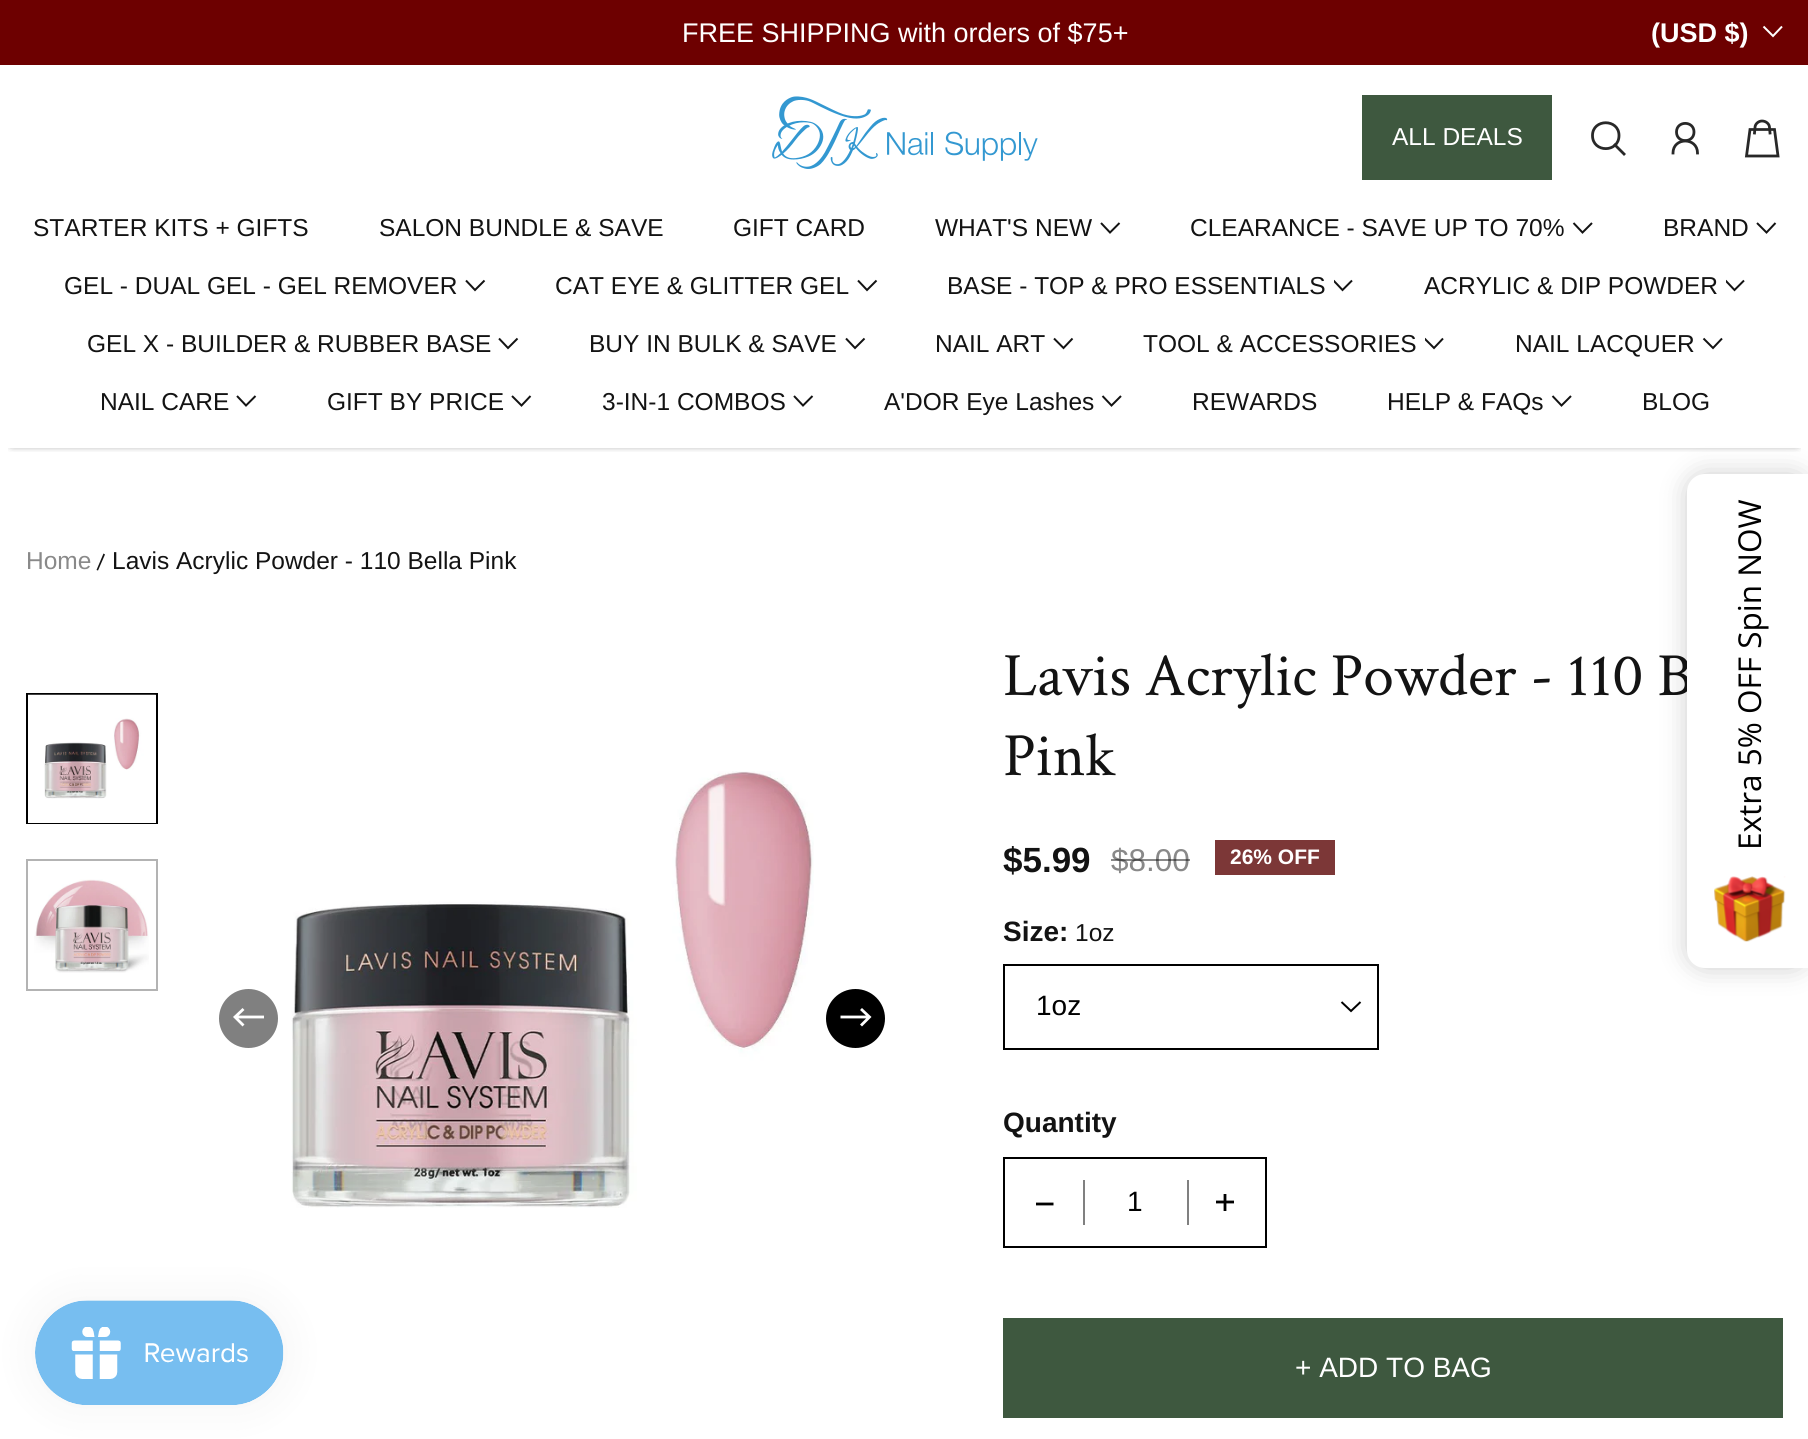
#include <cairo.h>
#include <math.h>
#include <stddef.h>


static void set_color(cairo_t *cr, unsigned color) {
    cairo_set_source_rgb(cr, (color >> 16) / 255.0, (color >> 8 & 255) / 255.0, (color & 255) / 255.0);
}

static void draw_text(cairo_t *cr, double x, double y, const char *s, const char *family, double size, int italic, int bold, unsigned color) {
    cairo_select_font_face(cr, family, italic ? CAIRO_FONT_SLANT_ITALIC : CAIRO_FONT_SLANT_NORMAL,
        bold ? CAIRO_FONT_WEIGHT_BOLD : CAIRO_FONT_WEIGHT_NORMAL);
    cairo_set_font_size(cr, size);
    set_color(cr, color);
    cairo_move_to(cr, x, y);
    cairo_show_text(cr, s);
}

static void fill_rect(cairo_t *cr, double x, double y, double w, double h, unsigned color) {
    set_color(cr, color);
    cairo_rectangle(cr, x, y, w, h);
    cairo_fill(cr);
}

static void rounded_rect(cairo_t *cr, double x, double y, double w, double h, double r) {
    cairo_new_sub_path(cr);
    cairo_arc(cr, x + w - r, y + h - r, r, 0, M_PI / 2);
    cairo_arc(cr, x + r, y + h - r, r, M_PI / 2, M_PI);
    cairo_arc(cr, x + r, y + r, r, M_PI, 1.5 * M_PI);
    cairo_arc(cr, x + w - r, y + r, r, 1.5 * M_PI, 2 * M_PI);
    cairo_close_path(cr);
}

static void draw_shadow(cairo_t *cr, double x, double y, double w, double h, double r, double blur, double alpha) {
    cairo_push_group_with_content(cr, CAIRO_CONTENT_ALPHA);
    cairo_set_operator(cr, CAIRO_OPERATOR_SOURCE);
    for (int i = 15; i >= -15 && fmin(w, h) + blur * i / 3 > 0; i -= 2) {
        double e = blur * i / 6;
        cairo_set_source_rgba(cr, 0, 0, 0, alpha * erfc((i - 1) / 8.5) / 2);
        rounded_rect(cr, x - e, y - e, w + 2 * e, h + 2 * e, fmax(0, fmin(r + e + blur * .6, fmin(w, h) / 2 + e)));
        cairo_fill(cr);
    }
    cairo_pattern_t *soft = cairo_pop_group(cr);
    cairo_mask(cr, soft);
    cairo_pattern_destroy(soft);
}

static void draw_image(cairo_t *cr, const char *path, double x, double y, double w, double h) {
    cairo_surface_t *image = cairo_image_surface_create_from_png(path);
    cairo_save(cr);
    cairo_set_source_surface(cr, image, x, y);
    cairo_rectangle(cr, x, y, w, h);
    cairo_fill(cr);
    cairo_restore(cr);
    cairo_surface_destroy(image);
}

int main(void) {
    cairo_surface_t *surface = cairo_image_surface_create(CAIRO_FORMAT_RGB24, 1808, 1439);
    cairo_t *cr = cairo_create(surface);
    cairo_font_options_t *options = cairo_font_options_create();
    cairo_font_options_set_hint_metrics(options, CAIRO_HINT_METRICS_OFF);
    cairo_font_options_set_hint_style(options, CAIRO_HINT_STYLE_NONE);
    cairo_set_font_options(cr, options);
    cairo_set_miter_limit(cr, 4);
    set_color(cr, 0xFFFFFF);
    cairo_paint(cr);
    fill_rect(cr, 0, 0, 1808, 65, 0x6D0000);
    draw_text(cr, 682, 42, "FREE SHIPPING with orders of $75+", "Liberation Sans", 27, 0, 0, 0xFFFFFF);
    draw_text(cr, 1651, 42, "(USD $)", "Liberation Sans", 27, 0, 1, 0xFFFFFF);
    cairo_new_path(cr);
    cairo_move_to(cr, 1782, 26.5);
    cairo_line_to(cr, 1773, 36);
    cairo_line_to(cr, 1763.5, 26.5);
    cairo_stroke(cr);
    cairo_save(cr);
    cairo_rectangle(cr, 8, 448, 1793, 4);
    cairo_clip(cr);
    set_color(cr, 0x000000);
    draw_shadow(cr, 12, 84, 1785, 359, 0, 4.5, 1);
    cairo_restore(cr);
    draw_image(cr, "assets/img1.png", 772, 96, 266, 73);
    fill_rect(cr, 1362, 95, 190, 85, 0x3E583F);
    draw_text(cr, 1392, 145, "ALL DEALS", "Liberation Sans", 24.5, 0, 0, 0xFFFFFF);
    cairo_new_path(cr);
    cairo_move_to(cr, 1615, 145);
    cairo_line_to(cr, 1624, 154);
    set_color(cr, 0x282828);
    cairo_set_line_width(cr, 2.8);
    cairo_set_line_cap(cr, CAIRO_LINE_CAP_SQUARE);
    cairo_set_line_join(cr, CAIRO_LINE_JOIN_ROUND);
    cairo_stroke(cr);
    cairo_new_path(cr);
    cairo_move_to(cr, 1619, 135.5);
    cairo_curve_to(cr, 1619, 118.5, 1592.5, 118.5, 1592.5, 135.5);
    cairo_curve_to(cr, 1592.5, 153, 1619, 153, 1619, 135.5);
    cairo_close_path(cr);
    cairo_set_line_cap(cr, CAIRO_LINE_CAP_ROUND);
    cairo_stroke(cr);
    cairo_new_path(cr);
    cairo_move_to(cr, 1694, 132);
    cairo_curve_to(cr, 1694, 120.5, 1676.5, 120.5, 1676.5, 132);
    cairo_curve_to(cr, 1676.5, 143.5, 1694, 143.5, 1694, 132);
    cairo_close_path(cr);
    cairo_stroke(cr);
    cairo_new_path(cr);
    cairo_move_to(cr, 1697.5, 153);
    cairo_curve_to(cr, 1697.5, 137, 1673, 137, 1673, 153);
    cairo_set_line_cap(cr, CAIRO_LINE_CAP_SQUARE);
    cairo_stroke(cr);
    cairo_new_path(cr);
    cairo_move_to(cr, 1758, 129.5);
    cairo_line_to(cr, 1750, 129.5);
    cairo_line_to(cr, 1746.5, 156);
    cairo_line_to(cr, 1778, 156);
    cairo_line_to(cr, 1774.5, 129.5);
    cairo_close_path(cr);
    cairo_set_line_cap(cr, CAIRO_LINE_CAP_BUTT);
    cairo_set_line_join(cr, CAIRO_LINE_JOIN_MITER);
    cairo_stroke(cr);
    cairo_new_path(cr);
    cairo_move_to(cr, 1754.5, 133);
    cairo_line_to(cr, 1755, 127.5);
    cairo_curve_to(cr, 1755, 124, 1758.5, 121, 1762, 121);
    cairo_curve_to(cr, 1766, 121, 1769.5, 124, 1769.5, 127.5);
    cairo_line_to(cr, 1770, 133);
    cairo_set_line_cap(cr, CAIRO_LINE_CAP_SQUARE);
    cairo_stroke(cr);
    draw_text(cr, 33, 236, "STARTER KITS + GIFTS", "Liberation Sans", 24.5, 0, 0, 0x131313);
    draw_text(cr, 379, 236, "SALON BUNDLE & SAVE", "Liberation Sans", 24.5, 0, 0, 0x131313);
    draw_text(cr, 733, 236, "GIFT CARD", "Liberation Sans", 24.5, 0, 0, 0x131313);
    draw_text(cr, 935, 236, "WHAT'S NEW", "Liberation Sans", 24.5, 0, 0, 0x131313);
    cairo_new_path(cr);
    cairo_move_to(cr, 1119.5, 223);
    cairo_line_to(cr, 1110, 232.5);
    cairo_line_to(cr, 1101, 223);
    cairo_set_line_width(cr, 2);
    cairo_set_line_cap(cr, CAIRO_LINE_CAP_BUTT);
    cairo_stroke(cr);
    draw_text(cr, 1190, 236, "CLEARANCE - SAVE UP TO 70%", "Liberation Sans", 24.5, 0, 0, 0x131313);
    cairo_new_path(cr);
    cairo_move_to(cr, 1592, 223);
    cairo_line_to(cr, 1582.5, 232.5);
    cairo_line_to(cr, 1573.5, 223);
    cairo_stroke(cr);
    draw_text(cr, 1663, 236, "BRAND", "Liberation Sans", 24.5, 0, 0, 0x131313);
    cairo_new_path(cr);
    cairo_move_to(cr, 1775.5, 223);
    cairo_line_to(cr, 1766.5, 232.5);
    cairo_line_to(cr, 1757, 223);
    cairo_stroke(cr);
    draw_text(cr, 64, 294, "GEL - DUAL GEL - GEL REMOVER", "Liberation Sans", 24.5, 0, 0, 0x131313);
    cairo_new_path(cr);
    cairo_move_to(cr, 484.5, 280.5);
    cairo_line_to(cr, 475, 290);
    cairo_line_to(cr, 466, 280.5);
    cairo_stroke(cr);
    draw_text(cr, 555, 294, "CAT EYE & GLITTER GEL", "Liberation Sans", 24.5, 0, 0, 0x131313);
    cairo_new_path(cr);
    cairo_move_to(cr, 876.5, 280.5);
    cairo_line_to(cr, 867, 290);
    cairo_line_to(cr, 858, 280.5);
    cairo_stroke(cr);
    draw_text(cr, 947, 294, "BASE - TOP & PRO ESSENTIALS", "Liberation Sans", 24.5, 0, 0, 0x131313);
    cairo_save(cr);
    cairo_rectangle(cr, 1334, 277, 21, 21);
    cairo_clip(cr);
    cairo_new_path(cr);
    cairo_move_to(cr, 1352, 280.5);
    cairo_line_to(cr, 1342.5, 290);
    cairo_line_to(cr, 1333.5, 280.5);
    cairo_stroke(cr);
    cairo_restore(cr);
    draw_text(cr, 1424, 294, "ACRYLIC & DIP POWDER", "Liberation Sans", 24.5, 0, 0, 0x131313);
    cairo_save(cr);
    cairo_rectangle(cr, 1726, 277, 21, 21);
    cairo_clip(cr);
    cairo_new_path(cr);
    cairo_move_to(cr, 1744, 280.5);
    cairo_line_to(cr, 1734.5, 290);
    cairo_line_to(cr, 1725.5, 280.5);
    cairo_stroke(cr);
    cairo_restore(cr);
    draw_text(cr, 87, 352, "GEL X - BUILDER & RUBBER BASE", "Liberation Sans", 24.5, 0, 0, 0x131313);
    cairo_new_path(cr);
    cairo_move_to(cr, 517.5, 338.5);
    cairo_line_to(cr, 508, 348);
    cairo_line_to(cr, 499, 338.5);
    cairo_stroke(cr);
    draw_text(cr, 589, 352, "BUY IN BULK & SAVE", "Liberation Sans", 24.5, 0, 0, 0x131313);
    cairo_new_path(cr);
    cairo_move_to(cr, 864.5, 338.5);
    cairo_line_to(cr, 855, 348);
    cairo_line_to(cr, 846, 338.5);
    cairo_stroke(cr);
    draw_text(cr, 935, 352, "NAIL ART", "Liberation Sans", 24.5, 0, 0, 0x131313);
    cairo_new_path(cr);
    cairo_move_to(cr, 1072.5, 338.5);
    cairo_line_to(cr, 1063.5, 348);
    cairo_line_to(cr, 1054, 338.5);
    cairo_stroke(cr);
    draw_text(cr, 1143, 352, "TOOL & ACCESSORIES", "Liberation Sans", 24.5, 0, 0, 0x131313);
    cairo_save(cr);
    cairo_rectangle(cr, 1425, 334, 21, 21);
    cairo_clip(cr);
    cairo_new_path(cr);
    cairo_move_to(cr, 1443, 338.5);
    cairo_line_to(cr, 1434, 348);
    cairo_line_to(cr, 1424.5, 338.5);
    cairo_stroke(cr);
    cairo_restore(cr);
    draw_text(cr, 1515, 352, "NAIL LACQUER", "Liberation Sans", 24.5, 0, 0, 0x131313);
    cairo_new_path(cr);
    cairo_move_to(cr, 1722, 338.5);
    cairo_line_to(cr, 1713, 348);
    cairo_line_to(cr, 1703.5, 338.5);
    cairo_stroke(cr);
    draw_text(cr, 100, 410, "NAIL CARE", "Liberation Sans", 24.5, 0, 0, 0x131313);
    cairo_new_path(cr);
    cairo_move_to(cr, 255.5, 396);
    cairo_line_to(cr, 246, 405.5);
    cairo_line_to(cr, 237, 396);
    cairo_stroke(cr);
    draw_text(cr, 327, 410, "GIFT BY PRICE", "Liberation Sans", 24.5, 0, 0, 0x131313);
    cairo_new_path(cr);
    cairo_move_to(cr, 530.5, 396);
    cairo_line_to(cr, 521.5, 405.5);
    cairo_line_to(cr, 512, 396);
    cairo_stroke(cr);
    draw_text(cr, 602, 410, "3-IN-1 COMBOS", "Liberation Sans", 24.5, 0, 0, 0x131313);
    cairo_new_path(cr);
    cairo_move_to(cr, 812.5, 396);
    cairo_line_to(cr, 803, 405.5);
    cairo_line_to(cr, 794, 396);
    cairo_stroke(cr);
    draw_text(cr, 884, 410, "A'DOR Eye Lashes", "Liberation Sans", 24.5, 0, 0, 0x131313);
    cairo_new_path(cr);
    cairo_move_to(cr, 1121, 396);
    cairo_line_to(cr, 1111.5, 405.5);
    cairo_line_to(cr, 1102.5, 396);
    cairo_stroke(cr);
    draw_text(cr, 1192, 410, "REWARDS", "Liberation Sans", 24.5, 0, 0, 0x131313);
    draw_text(cr, 1387, 410, "HELP & FAQs", "Liberation Sans", 24.5, 0, 0, 0x131313);
    cairo_new_path(cr);
    cairo_move_to(cr, 1571, 396);
    cairo_line_to(cr, 1561.5, 405.5);
    cairo_line_to(cr, 1552.5, 396);
    cairo_stroke(cr);
    draw_text(cr, 1642, 410, "BLOG", "Liberation Sans", 24.5, 0, 0, 0x131313);
    draw_text(cr, 26, 569, "Home", "Liberation Sans", 24.5, 0, 0, 0x898989);
    set_color(cr, 0x131313);
    cairo_new_path(cr);
    cairo_move_to(cr, 103.5, 553.5);
    cairo_line_to(cr, 105, 554.5);
    cairo_line_to(cr, 98, 570.5);
    cairo_line_to(cr, 96.5, 570);
    cairo_close_path(cr);
    cairo_fill(cr);
    draw_text(cr, 112, 569, "Lavis Acrylic Powder - 110 Bella Pink", "Liberation Sans", 24.5, 0, 0, 0x131313);
    cairo_rectangle(cr, 27, 694, 130, 129);
    set_color(cr, 0x000000);
    cairo_stroke(cr);
    fill_rect(cr, 28, 822, 128, 1, 0xFFFFFF);
    draw_image(cr, "assets/img2.png", 28, 694, 128, 105);
    cairo_rectangle(cr, 27, 860, 130, 130);
    set_color(cr, 0xB3B3B3);
    cairo_stroke(cr);
    draw_image(cr, "assets/img3.png", 34, 879, 115, 94);
    draw_image(cr, "assets/img4.png", 291, 771, 523, 437);
    set_color(cr, 0x808080);
    cairo_arc(cr, 248.5, 1018.5, 30.5, 0, 2 * M_PI);
    cairo_fill_preserve(cr);
    set_color(cr, 0xFFFFFF);
    cairo_stroke(cr);
    cairo_new_path(cr);
    cairo_move_to(cr, 243.5, 1009);
    cairo_line_to(cr, 235, 1017);
    cairo_line_to(cr, 243.5, 1025.5);
    cairo_move_to(cr, 235.5, 1017);
    cairo_line_to(cr, 264, 1017);
    cairo_set_line_width(cr, 2.8);
    cairo_stroke(cr);
    set_color(cr, 0x000000);
    cairo_arc(cr, 855.5, 1018.5, 30.5, 0, 2 * M_PI);
    cairo_fill_preserve(cr);
    set_color(cr, 0xFFFFFF);
    cairo_set_line_width(cr, 2);
    cairo_stroke(cr);
    cairo_new_path(cr);
    cairo_move_to(cr, 861, 1009);
    cairo_line_to(cr, 869.5, 1017);
    cairo_line_to(cr, 861, 1025.5);
    cairo_move_to(cr, 869, 1017);
    cairo_line_to(cr, 840.5, 1017);
    cairo_set_line_width(cr, 2.8);
    cairo_stroke(cr);
    draw_text(cr, 1003, 695, "Lavis Acrylic Powder - 110 B", "Crimson Text", 61.6, 0, 0, 0x131313);
    draw_text(cr, 1003, 775, "Pink", "Crimson Text", 61.6, 0, 0, 0x131313);
    draw_text(cr, 1003, 872, "$5.99", "Liberation Sans", 35, 0, 1, 0x131313);
    draw_text(cr, 1111, 871, "$8.00", "Liberation Sans", 31.5, 0, 0, 0x898989);
    cairo_set_source_rgba(cr, 0.075, 0.075, 0.075, 0.5);
    cairo_rectangle(cr, 1111, 859, 79, 2);
    cairo_fill(cr);
    fill_rect(cr, 1215, 840, 120, 35, 0x7C3737);
    draw_text(cr, 1230, 864, "26% OFF", "Liberation Sans", 21, 0, 1, 0xFFFFFF);
    draw_text(cr, 1003, 941, "Size:", "Liberation Sans", 28, 0, 1, 0x131313);
    draw_text(cr, 1075, 941, "1oz", "Liberation Sans", 24.5, 0, 0, 0x131313);
    cairo_new_path(cr);
    cairo_move_to(cr, 1360.5, 1002);
    cairo_line_to(cr, 1351, 1011);
    cairo_line_to(cr, 1341.5, 1002);
    set_color(cr, 0x000000);
    cairo_set_line_width(cr, 2);
    cairo_stroke(cr);
    cairo_rectangle(cr, 1004, 965, 374, 84);
    cairo_stroke(cr);
    draw_text(cr, 1036, 1015, "1oz", "Liberation Sans", 28, 0, 0, 0x000000);
    draw_text(cr, 1003, 1132, "Quantity", "Liberation Sans", 28, 0, 1, 0x131313);
    cairo_rectangle(cr, 1004, 1158, 262, 89);
    set_color(cr, 0x000000);
    cairo_stroke(cr);
    cairo_new_path(cr);
    cairo_move_to(cr, 1036, 1204);
    cairo_line_to(cr, 1053.5, 1204);
    cairo_set_line_width(cr, 2.8);
    cairo_stroke(cr);
    fill_rect(cr, 1187, 1180, 2, 45, 0x808080);
    fill_rect(cr, 1083, 1180, 2, 45, 0x808080);
    draw_text(cr, 1127, 1211, "1", "Liberation Sans", 28, 0, 0, 0x000000);
    cairo_new_path(cr);
    cairo_move_to(cr, 1216, 1202);
    cairo_line_to(cr, 1234, 1202);
    cairo_stroke(cr);
    cairo_save(cr);
    cairo_rectangle(cr, 1216, 1194, 18, 17);
    cairo_clip(cr);
    cairo_new_path(cr);
    cairo_move_to(cr, 1225, 1193.5);
    cairo_line_to(cr, 1225, 1211);
    cairo_stroke(cr);
    cairo_restore(cr);
    fill_rect(cr, 1003, 1318, 780, 100, 0x3E583F);
    draw_text(cr, 1295, 1377, "+ ADD TO BAG", "Liberation Sans", 28, 0, 0, 0xFFFFFF);
    set_color(cr, 0x000000);
    draw_shadow(cr, 1687, 474, 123, 494, 18, 13, 0.2);
    set_color(cr, 0xFFFFFF);
    cairo_new_path(cr);
    cairo_move_to(cr, 1705, 474);
    cairo_line_to(cr, 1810, 474);
    cairo_line_to(cr, 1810, 968);
    cairo_line_to(cr, 1705, 968);
    cairo_curve_to(cr, 1695, 968, 1687, 960, 1687, 950);
    cairo_line_to(cr, 1687, 492);
    cairo_curve_to(cr, 1687, 482, 1695, 474, 1705, 474);
    cairo_close_path(cr);
    cairo_fill(cr);
    cairo_save(cr);
    cairo_translate(cr, 1761, 850);
    cairo_rotate(cr, -90 * M_PI / 180);
    draw_text(cr, 0, 0, "Extra 5% OFF Spin NOW", "Open Sans", 31.5, 0, 0, 0x000000);
    cairo_restore(cr);
    draw_image(cr, "assets/img5.png", 1714, 876, 72, 66);
    set_color(cr, 0x000000);
    draw_shadow(cr, 35, 1300, 249, 105, 52.5, 22, 0.05);
    draw_image(cr, "assets/img6.png", 35, 1300, 249, 105);
    cairo_surface_write_to_png(surface, "output.png");
    cairo_font_options_destroy(options);
    cairo_destroy(cr);
    cairo_surface_destroy(surface);
    return 0;
}
